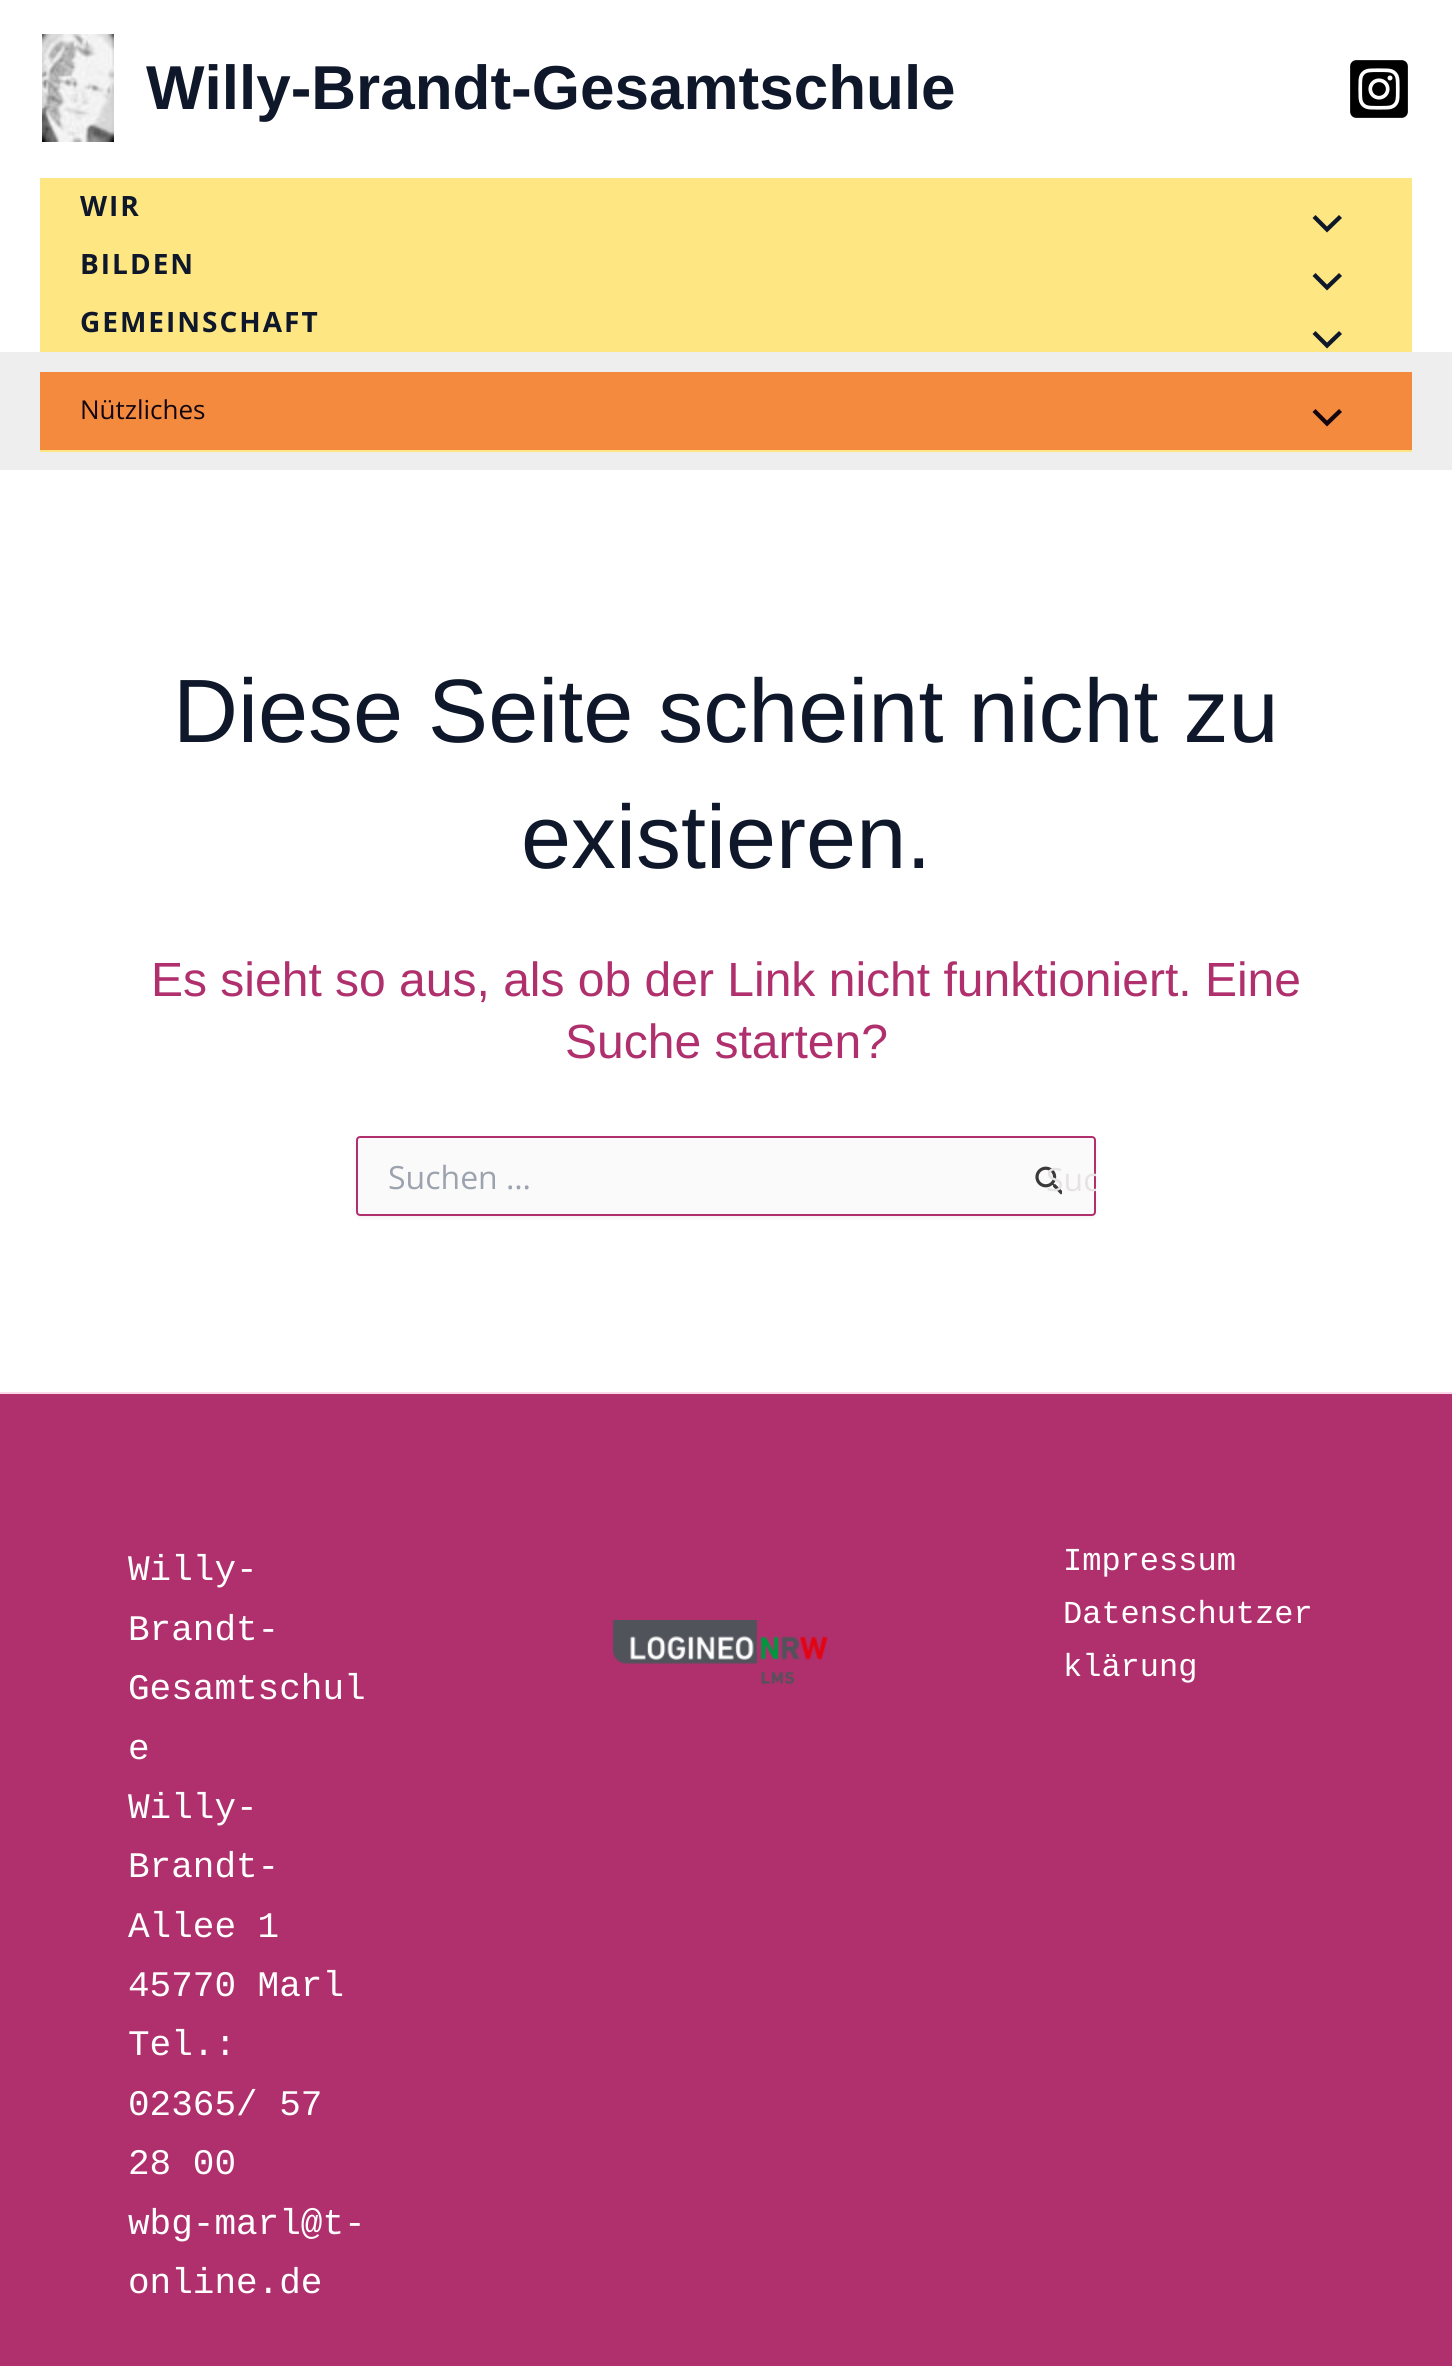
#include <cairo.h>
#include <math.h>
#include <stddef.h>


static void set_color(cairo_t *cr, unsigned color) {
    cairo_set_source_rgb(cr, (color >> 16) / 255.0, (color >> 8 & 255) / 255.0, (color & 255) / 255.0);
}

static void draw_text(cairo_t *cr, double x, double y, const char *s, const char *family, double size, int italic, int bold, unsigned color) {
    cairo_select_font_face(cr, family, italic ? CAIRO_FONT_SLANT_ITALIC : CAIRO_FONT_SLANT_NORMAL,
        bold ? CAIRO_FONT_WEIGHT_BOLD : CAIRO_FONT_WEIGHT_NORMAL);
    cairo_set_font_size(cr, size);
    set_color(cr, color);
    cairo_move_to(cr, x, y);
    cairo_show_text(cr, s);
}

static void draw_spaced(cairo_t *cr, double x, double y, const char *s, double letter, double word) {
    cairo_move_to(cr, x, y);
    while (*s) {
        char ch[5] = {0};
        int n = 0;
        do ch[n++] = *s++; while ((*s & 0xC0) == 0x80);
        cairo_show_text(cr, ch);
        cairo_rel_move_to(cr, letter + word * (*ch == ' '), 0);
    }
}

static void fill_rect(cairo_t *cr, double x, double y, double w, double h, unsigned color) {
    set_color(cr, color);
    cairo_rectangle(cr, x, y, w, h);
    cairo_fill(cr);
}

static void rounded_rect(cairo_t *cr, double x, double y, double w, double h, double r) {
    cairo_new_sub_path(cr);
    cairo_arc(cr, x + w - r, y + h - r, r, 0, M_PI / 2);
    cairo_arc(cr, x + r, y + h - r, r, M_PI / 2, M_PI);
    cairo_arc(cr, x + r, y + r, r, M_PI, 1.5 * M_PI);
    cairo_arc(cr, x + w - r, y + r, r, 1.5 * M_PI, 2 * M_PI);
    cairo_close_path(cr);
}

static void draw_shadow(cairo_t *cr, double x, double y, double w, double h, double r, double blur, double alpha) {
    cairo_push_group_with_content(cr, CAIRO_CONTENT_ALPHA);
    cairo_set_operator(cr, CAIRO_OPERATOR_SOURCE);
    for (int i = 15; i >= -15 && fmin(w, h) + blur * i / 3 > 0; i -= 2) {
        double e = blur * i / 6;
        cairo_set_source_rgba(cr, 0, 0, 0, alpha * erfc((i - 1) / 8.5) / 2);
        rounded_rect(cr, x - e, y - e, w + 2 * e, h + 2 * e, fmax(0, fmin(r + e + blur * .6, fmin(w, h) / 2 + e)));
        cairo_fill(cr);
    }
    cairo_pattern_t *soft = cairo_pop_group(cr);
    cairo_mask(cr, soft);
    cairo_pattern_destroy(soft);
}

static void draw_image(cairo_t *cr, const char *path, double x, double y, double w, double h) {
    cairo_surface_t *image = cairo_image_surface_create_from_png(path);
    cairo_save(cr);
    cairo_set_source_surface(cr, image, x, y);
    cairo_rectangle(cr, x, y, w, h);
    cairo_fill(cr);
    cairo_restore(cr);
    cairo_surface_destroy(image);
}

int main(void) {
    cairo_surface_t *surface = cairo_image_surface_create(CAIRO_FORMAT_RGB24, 1452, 2366);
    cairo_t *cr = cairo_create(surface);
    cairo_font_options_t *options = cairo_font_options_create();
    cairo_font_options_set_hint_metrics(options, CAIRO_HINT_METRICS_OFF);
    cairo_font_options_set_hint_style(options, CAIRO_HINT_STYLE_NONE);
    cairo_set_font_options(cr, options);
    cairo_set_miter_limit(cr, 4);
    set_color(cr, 0xFFFFFF);
    cairo_paint(cr);
    draw_image(cr, "assets/img1.png", 42, 34, 72, 108);
    draw_text(cr, 146, 109, "Willy-Brandt-Gesamtschule", "Liberation Sans", 62, 0, 1, 0x0F172A);
    draw_image(cr, "assets/img2.png", 1350, 60, 58, 58);
    fill_rect(cr, 40, 178, 1372, 174, 0xFEE783);
    cairo_select_font_face(cr, "Open Sans", CAIRO_FONT_SLANT_NORMAL, CAIRO_FONT_WEIGHT_BOLD);
    cairo_set_font_size(cr, 28);
    set_color(cr, 0x0F172A);
    draw_spaced(cr, 80, 216, "WIR", 2, 0);
    cairo_new_path(cr);
    cairo_move_to(cr, 1312.5, 218);
    cairo_line_to(cr, 1327, 232.5);
    cairo_line_to(cr, 1342, 218);
    cairo_line_to(cr, 1339, 215);
    cairo_line_to(cr, 1327, 226.5);
    cairo_line_to(cr, 1315.5, 215);
    cairo_close_path(cr);
    cairo_fill(cr);
    draw_spaced(cr, 80, 274, "BILDEN", 2, 0);
    cairo_new_path(cr);
    cairo_move_to(cr, 1312.5, 276);
    cairo_line_to(cr, 1327, 290.5);
    cairo_line_to(cr, 1342, 276);
    cairo_line_to(cr, 1339, 273);
    cairo_line_to(cr, 1327, 284.5);
    cairo_line_to(cr, 1315.5, 273);
    cairo_close_path(cr);
    cairo_fill(cr);
    draw_spaced(cr, 80, 332, "GEMEINSCHAFT", 2, 0);
    cairo_new_path(cr);
    cairo_move_to(cr, 1312.5, 334);
    cairo_line_to(cr, 1327, 348.5);
    cairo_line_to(cr, 1342, 334);
    cairo_line_to(cr, 1339, 331);
    cairo_line_to(cr, 1327, 342.5);
    cairo_line_to(cr, 1315.5, 331);
    cairo_close_path(cr);
    cairo_fill(cr);
    fill_rect(cr, 0, 352, 1452, 118, 0xEEEEEE);
    fill_rect(cr, 40, 372, 1372, 78, 0xF38A3E);
    fill_rect(cr, 40, 450, 1372, 2, 0xFEE783);
    draw_text(cr, 80, 419, "Nützliches", "Open Sans", 26, 0, 0, 0x140610);
    cairo_new_path(cr);
    cairo_move_to(cr, 1312.5, 412);
    cairo_line_to(cr, 1327, 426.5);
    cairo_line_to(cr, 1342, 412);
    cairo_line_to(cr, 1339, 409);
    cairo_line_to(cr, 1327, 420.5);
    cairo_line_to(cr, 1315.5, 409);
    cairo_close_path(cr);
    cairo_fill(cr);
    draw_text(cr, 173, 742, "Diese Seite scheint nicht zu", "Liberation Sans", 90, 0, 0, 0x0F172A);
    draw_text(cr, 521, 868, "existieren.", "Liberation Sans", 90, 0, 0, 0x0F172A);
    draw_text(cr, 151, 996, "Es sieht so aus, als ob der Link nicht funktioniert. Eine", "Liberation Sans", 48, 0, 0, 0xB0306E);
    draw_text(cr, 565, 1058, "Suche starten?", "Liberation Sans", 48, 0, 0, 0xB0306E);
    set_color(cr, 0x000000);
    draw_shadow(cr, 356, 1138, 740, 80, 4, 2, 0.05);
    set_color(cr, 0xFAFAFA);
    rounded_rect(cr, 357, 1137, 738, 78, 3);
    cairo_fill_preserve(cr);
    set_color(cr, 0xB0306E);
    cairo_stroke(cr);
    draw_text(cr, 388, 1189, "Suchen …", "Open Sans", 32, 0, 0, 0x9CA3AF);
    draw_image(cr, "assets/img3.png", 1035, 1166, 27, 29);
    cairo_save(cr);
    rounded_rect(cr, 1006, 1136, 90, 84, 4);
    cairo_clip(cr);
    draw_text(cr, 1046, 1191, "Suc", "Open Sans", 32, 0, 0, 0xE7E2E4);
    cairo_restore(cr);
    fill_rect(cr, 0, 1394, 1452, 972, 0xB0306E);
    fill_rect(cr, 0, 1392, 1452, 2, 0xFAD8E9);
    draw_text(cr, 128, 1580, "Willy-", "Liberation Mono", 36, 0, 0, 0xFFFFFF);
    draw_text(cr, 128, 1640, "Brandt-", "Liberation Mono", 36, 0, 0, 0xFFFFFF);
    draw_text(cr, 128, 1699, "Gesamtschul", "Liberation Mono", 36, 0, 0, 0xFFFFFF);
    draw_text(cr, 128, 1759, "e", "Liberation Mono", 36, 0, 0, 0xFFFFFF);
    draw_text(cr, 128, 1818, "Willy-", "Liberation Mono", 36, 0, 0, 0xFFFFFF);
    draw_text(cr, 128, 1877, "Brandt-", "Liberation Mono", 36, 0, 0, 0xFFFFFF);
    draw_text(cr, 128, 1937, "Allee 1", "Liberation Mono", 36, 0, 0, 0xFFFFFF);
    draw_text(cr, 128, 1996, "45770 Marl", "Liberation Mono", 36, 0, 0, 0xFFFFFF);
    draw_text(cr, 128, 2055, "Tel.:", "Liberation Mono", 36, 0, 0, 0xFFFFFF);
    draw_text(cr, 128, 2115, "02365/ 57", "Liberation Mono", 36, 0, 0, 0xFFFFFF);
    draw_text(cr, 128, 2174, "28 00", "Liberation Mono", 36, 0, 0, 0xFFFFFF);
    draw_text(cr, 128, 2234, "wbg-marl@t-", "Liberation Mono", 36, 0, 0, 0xFFFFFF);
    draw_text(cr, 128, 2293, "online.de", "Liberation Mono", 36, 0, 0, 0xFFFFFF);
    draw_image(cr, "assets/img4.png", 612, 1620, 216, 65);
    draw_text(cr, 1063, 1570, "Impressum", "Liberation Mono", 32, 0, 0, 0xFFFFFF);
    draw_text(cr, 1063, 1623, "Datenschutzer", "Liberation Mono", 32, 0, 0, 0xFFFFFF);
    draw_text(cr, 1063, 1676, "klärung", "Liberation Mono", 32, 0, 0, 0xFFFFFF);
    cairo_surface_write_to_png(surface, "output.png");
    cairo_font_options_destroy(options);
    cairo_destroy(cr);
    cairo_surface_destroy(surface);
    return 0;
}
